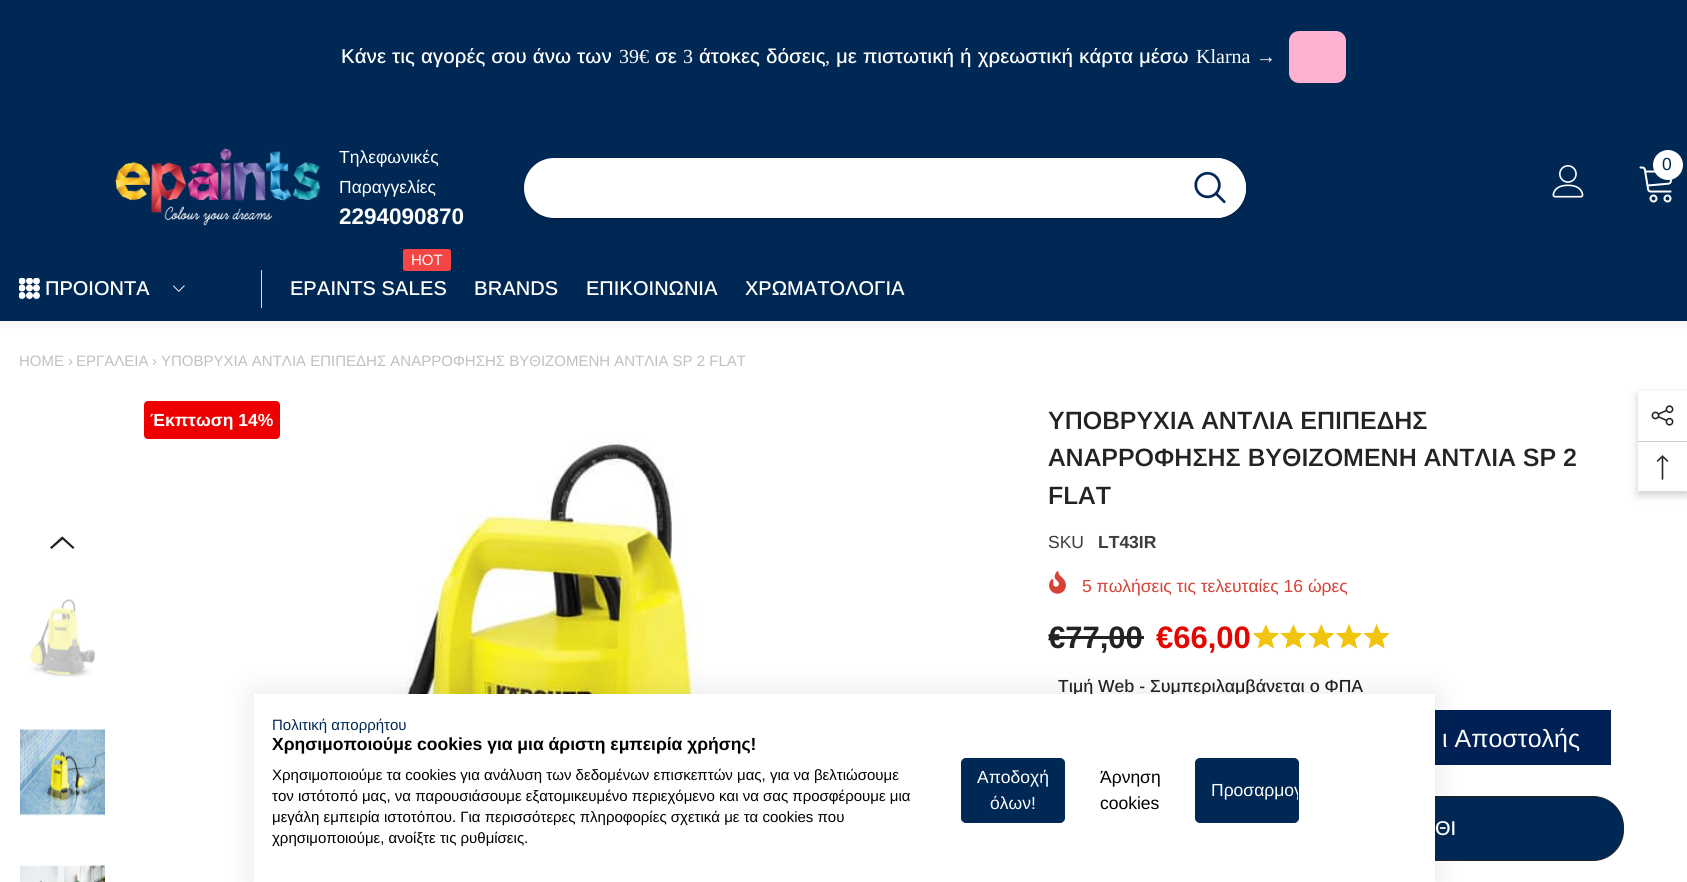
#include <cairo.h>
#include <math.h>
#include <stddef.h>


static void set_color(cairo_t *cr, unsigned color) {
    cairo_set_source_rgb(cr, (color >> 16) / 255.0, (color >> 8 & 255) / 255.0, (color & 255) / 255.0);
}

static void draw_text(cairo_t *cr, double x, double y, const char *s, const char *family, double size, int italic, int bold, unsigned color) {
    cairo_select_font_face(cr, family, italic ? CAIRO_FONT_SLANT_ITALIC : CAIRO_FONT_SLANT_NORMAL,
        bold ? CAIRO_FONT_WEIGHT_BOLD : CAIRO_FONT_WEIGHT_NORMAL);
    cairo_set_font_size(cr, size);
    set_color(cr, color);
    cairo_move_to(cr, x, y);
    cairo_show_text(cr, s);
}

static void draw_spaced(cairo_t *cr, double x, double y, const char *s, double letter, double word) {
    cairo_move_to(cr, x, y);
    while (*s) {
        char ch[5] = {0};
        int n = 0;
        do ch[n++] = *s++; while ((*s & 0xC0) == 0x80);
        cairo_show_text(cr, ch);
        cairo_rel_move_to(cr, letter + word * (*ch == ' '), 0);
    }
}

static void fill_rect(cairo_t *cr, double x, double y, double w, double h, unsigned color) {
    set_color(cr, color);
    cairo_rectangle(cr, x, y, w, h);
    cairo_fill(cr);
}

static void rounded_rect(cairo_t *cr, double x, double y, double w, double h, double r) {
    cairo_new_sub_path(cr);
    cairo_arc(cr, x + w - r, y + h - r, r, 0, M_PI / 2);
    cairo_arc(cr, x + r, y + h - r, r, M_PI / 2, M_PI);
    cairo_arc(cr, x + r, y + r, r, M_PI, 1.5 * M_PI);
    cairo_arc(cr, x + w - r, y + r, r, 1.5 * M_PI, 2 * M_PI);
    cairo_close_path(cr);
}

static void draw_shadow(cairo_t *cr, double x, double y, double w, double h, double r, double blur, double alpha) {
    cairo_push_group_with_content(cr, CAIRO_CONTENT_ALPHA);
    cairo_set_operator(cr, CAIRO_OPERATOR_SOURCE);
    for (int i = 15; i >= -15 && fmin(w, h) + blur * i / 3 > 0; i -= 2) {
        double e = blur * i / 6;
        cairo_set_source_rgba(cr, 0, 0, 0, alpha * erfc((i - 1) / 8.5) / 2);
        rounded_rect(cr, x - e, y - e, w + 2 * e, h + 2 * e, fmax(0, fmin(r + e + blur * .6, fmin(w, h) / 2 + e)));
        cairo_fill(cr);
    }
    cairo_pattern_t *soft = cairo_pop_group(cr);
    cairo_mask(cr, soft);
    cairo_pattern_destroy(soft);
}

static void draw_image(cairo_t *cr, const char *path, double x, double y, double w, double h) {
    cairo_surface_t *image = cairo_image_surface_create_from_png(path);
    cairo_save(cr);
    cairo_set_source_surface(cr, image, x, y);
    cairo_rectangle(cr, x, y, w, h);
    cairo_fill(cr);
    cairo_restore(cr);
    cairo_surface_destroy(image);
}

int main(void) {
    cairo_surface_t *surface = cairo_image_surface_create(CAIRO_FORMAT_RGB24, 1687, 882);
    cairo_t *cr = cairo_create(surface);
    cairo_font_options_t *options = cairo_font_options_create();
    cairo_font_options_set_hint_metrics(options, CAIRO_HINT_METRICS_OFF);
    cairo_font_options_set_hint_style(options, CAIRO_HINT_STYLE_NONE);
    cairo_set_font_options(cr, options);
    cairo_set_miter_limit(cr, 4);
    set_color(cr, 0xFFFFFF);
    cairo_paint(cr);
    fill_rect(cr, 0, 0, 1687, 114, 0x002855);
    cairo_select_font_face(cr, "Arimo Medium", CAIRO_FONT_SLANT_NORMAL, CAIRO_FONT_WEIGHT_NORMAL);
    cairo_set_font_size(cr, 20);
    set_color(cr, 0xFFFFFF);
    draw_spaced(cr, 341, 63, "Κάνε τις αγορές σου άνω των", 0, 0.5);
    draw_text(cr, 619, 63, "39€", "Liberation Serif", 20, 0, 0, 0xFFFFFF);
    draw_text(cr, 655, 63, "σε", "Arimo Medium", 20, 0, 0, 0xFFFFFF);
    draw_text(cr, 683, 63, "3", "Liberation Serif", 20, 0, 0, 0xFFFFFF);
    cairo_select_font_face(cr, "Arimo Medium", CAIRO_FONT_SLANT_NORMAL, CAIRO_FONT_WEIGHT_NORMAL);
    draw_spaced(cr, 699, 63, "άτοκες δόσεις", 0, 0.5);
    draw_spaced(cr, 836, 63, "με πιστωτική ή χρεωστική κάρτα μέσω", 0, 0.5);
    draw_text(cr, 1196, 63, "Klarna", "Liberation Serif", 20, 0, 0, 0xFFFFFF);
    draw_text(cr, 1256, 63, "→", "Liberation Serif", 20, 0, 0, 0xFFFFFF);
    set_color(cr, 0xFFB1D2);
    rounded_rect(cr, 1289, 31, 57, 52, 10);
    cairo_fill(cr);
    draw_text(cr, 825, 63, ",", "Liberation Serif", 20, 0, 0, 0xFFFFFF);
    set_color(cr, 0x000000);
    draw_shadow(cr, 0, 260, 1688, 65, 0, 3, 0.05);
    fill_rect(cr, 0, 114, 1687, 207, 0x002855);
    draw_image(cr, "assets/img1.png", 115, 148, 205, 78);
    draw_text(cr, 339, 163, "Τηλεφωνικές", "Arimo", 17.5, 0, 0, 0xFFFFFF);
    draw_text(cr, 339, 193, "Παραγγελίες", "Arimo", 17.5, 0, 0, 0xFFFFFF);
    draw_text(cr, 339, 224, "2294090870", "Arimo", 22.5, 0, 1, 0xFFFFFF);
    set_color(cr, 0x000000);
    draw_shadow(cr, 524, 160, 722, 60, 30, 3, 0.2);
    set_color(cr, 0xFFFFFF);
    rounded_rect(cr, 524, 158, 722, 60, 30);
    cairo_fill(cr);
    cairo_new_path(cr);
    cairo_move_to(cr, 1174, 158);
    cairo_line_to(cr, 1216, 158);
    cairo_curve_to(cr, 1232.5, 158, 1246, 171.5, 1246, 188);
    cairo_curve_to(cr, 1246, 204.5, 1232.5, 218, 1216, 218);
    cairo_line_to(cr, 1174, 218);
    cairo_close_path(cr);
    cairo_fill(cr);
    draw_image(cr, "assets/img2.png", 1194, 171, 32, 33);
    draw_image(cr, "assets/img3.png", 1552, 165, 32, 33);
    draw_image(cr, "assets/img4.png", 1639, 166, 34, 37);
    cairo_arc(cr, 1668, 165, 15, 0, 2 * M_PI);
    cairo_fill(cr);
    draw_text(cr, 1662, 170, "0", "Arimo", 17.5, 0, 0, 0x002855);
    draw_image(cr, "assets/img5.png", 19, 278, 21, 21);
    draw_text(cr, 45, 295, "ΠΡΟΙΟΝΤΑ", "Arimo Medium", 20, 0, 0, 0xFFFFFF);
    draw_image(cr, "assets/img6.png", 173, 285, 12, 7);
    fill_rect(cr, 261, 270, 1, 38, 0xDEDEDE);
    set_color(cr, 0xF54545);
    rounded_rect(cr, 403, 249, 48, 22, 2.5);
    cairo_fill(cr);
    draw_text(cr, 411, 265, "HOT", "Arimo", 15, 0, 0, 0xFFFFFF);
    draw_text(cr, 290, 295, "EPAINTS SALES", "Arimo Medium", 20, 0, 0, 0xFFFFFF);
    draw_text(cr, 474, 295, "BRANDS", "Arimo Medium", 20, 0, 0, 0xFFFFFF);
    draw_text(cr, 586, 295, "ΕΠΙΚΟΙΝΩΝΙΑ", "Arimo Medium", 20, 0, 0, 0xFFFFFF);
    draw_text(cr, 745, 295, "ΧΡΩΜΑΤΟΛΟΓΙΑ", "Arimo Medium", 20, 0, 0, 0xFFFFFF);
    draw_text(cr, 19, 366, "HOME", "Arimo", 15, 0, 0, 0xC0C0C0);
    draw_text(cr, 68, 366, "›", "Arimo", 15, 0, 0, 0xC0C0C0);
    draw_text(cr, 76, 366, "ΕΡΓΑΛΕΙΑ", "Arimo", 15, 0, 0, 0xC0C0C0);
    draw_text(cr, 152, 366, "›", "Arimo", 15, 0, 0, 0xC0C0C0);
    draw_text(cr, 161, 366, "ΥΠΟΒΡΥΧΙΑ ΑΝΤΛΙΑ ΕΠΙΠΕΔΗΣ ΑΝΑΡΡΟΦΗΣΗΣ ΒΥΘΙΖΟΜΕΝΗ ΑΝΤΛΙΑ SP 2 FLAT", "Arimo", 15, 0, 0, 0xC0C0C0);
    set_color(cr, 0xEE0000);
    rounded_rect(cr, 144, 401, 136, 38, 4);
    cairo_fill(cr);
    draw_text(cr, 150, 426, "Έκπτωση 14%", "Arimo", 17.5, 0, 1, 0xFFFFFF);
    draw_image(cr, "assets/img7.png", 280, 439, 439, 255);
    set_color(cr, 0x212121);
    cairo_new_path(cr);
    cairo_move_to(cr, 50, 547.5);
    cairo_line_to(cr, 51.5, 549);
    cairo_line_to(cr, 62.5, 539.5);
    cairo_line_to(cr, 73, 549);
    cairo_line_to(cr, 74.5, 547.5);
    cairo_line_to(cr, 62.5, 536.5);
    cairo_line_to(cr, 61.5, 537);
    cairo_close_path(cr);
    cairo_fill(cr);
    draw_image(cr, "assets/img8.png", 30, 599, 65, 78);
    draw_image(cr, "assets/img9.png", 20, 729, 85, 87);
    draw_image(cr, "assets/img10.png", 20, 865, 85, 17);
    draw_text(cr, 1048, 429, "ΥΠΟΒΡΥΧΙΑ ΑΝΤΛΙΑ ΕΠΙΠΕΔΗΣ", "Arimo SemiBold", 25, 0, 0, 0x232323);
    draw_text(cr, 1048, 466, "ΑΝΑΡΡΟΦΗΣΗΣ ΒΥΘΙΖΟΜΕΝΗ ΑΝΤΛΙΑ SP 2", "Arimo SemiBold", 25, 0, 0, 0x232323);
    draw_text(cr, 1048, 504, "FLAT", "Arimo SemiBold", 25, 0, 0, 0x232323);
    draw_text(cr, 1048, 548, "SKU", "Arimo", 17.5, 0, 0, 0x3C3C3C);
    draw_text(cr, 1098, 548, "LT43IR", "Arimo", 17.5, 0, 1, 0x3C3C3C);
    draw_image(cr, "assets/img11.png", 1049, 571, 17, 23);
    draw_text(cr, 1082, 592, "5 πωλήσεις τις τελευταίες 16 ώρες", "Arimo", 17.5, 0, 0, 0xD44336);
    draw_text(cr, 1048, 648, "€77,00", "Arimo", 31, 0, 1, 0x232323);
    fill_rect(cr, 1049, 636, 95, 3, 0x232323);
    draw_text(cr, 1156, 648, "€66,00", "Arimo", 31, 0, 1, 0xE10600);
    draw_image(cr, "assets/img12.png", 1252, 623, 138, 26);
    draw_text(cr, 1058, 692, "Τιμή Web - Συμπεριλαμβάνεται ο ΦΠΑ", "Arimo Medium", 17.5, 0, 0, 0x232323);
    fill_rect(cr, 1435, 710, 176, 55, 0x002155);
    draw_text(cr, 1442, 747, "ι Αποστολής", "Liberation Sans", 25, 0, 0, 0xFFFFFF);
    set_color(cr, 0x002855);
    rounded_rect(cr, 1168.5, 796.5, 455, 64, 30.5);
    cairo_fill_preserve(cr);
    set_color(cr, 0x232323);
    cairo_set_line_width(cr, 1);
    cairo_stroke(cr);
    draw_text(cr, 1435, 835, "ΘΙ", "Arimo Medium", 20, 0, 0, 0xFFFFFF);
    set_color(cr, 0x000000);
    draw_shadow(cr, 1638, 395, 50, 100, 0, 4.5, 0.2);
    fill_rect(cr, 1638, 391, 49, 100, 0xFFFFFF);
    draw_image(cr, "assets/img13.png", 1651, 405, 23, 21);
    fill_rect(cr, 1638, 441, 49, 1, 0xCCCCCC);
    draw_image(cr, "assets/img14.png", 1656, 455, 13, 25);
    set_color(cr, 0x000000);
    draw_shadow(cr, 254, 694, 1181, 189, 0, 15, 0.1);
    fill_rect(cr, 254, 694, 1181, 188, 0xFFFFFF);
    draw_text(cr, 272, 730, "Πολιτική απορρήτου", "Arimo", 15, 0, 0, 0x002855);
    draw_text(cr, 272, 750, "Χρησιμοποιούμε cookies για μια άριστη εμπειρία χρήσης!", "Arimo", 17.5, 0, 1, 0x000000);
    draw_text(cr, 272, 780, "Χρησιμοποιούμε τα cookies για ανάλυση των δεδομένων επισκεπτών μας, για να βελτιώσουμε", "Arimo", 15, 0, 0, 0x000000);
    draw_text(cr, 272, 801, "τον ιστότοπό μας, να παρουσιάσουμε εξατομικευμένο περιεχόμενο και να σας προσφέρουμε μια", "Arimo", 15, 0, 0, 0x000000);
    draw_text(cr, 272, 822, "μεγάλη εμπειρία ιστοτόπου. Για περισσότερες πληροφορίες σχετικά με τα cookies που", "Arimo", 15, 0, 0, 0x000000);
    draw_text(cr, 272, 843, "χρησιμοποιούμε, ανοίξτε τις ρυθμίσεις.", "Arimo", 15, 0, 0, 0x000000);
    set_color(cr, 0x002855);
    rounded_rect(cr, 961.5, 758.5, 103, 64, 4.5);
    cairo_fill_preserve(cr);
    cairo_stroke(cr);
    draw_text(cr, 977, 783, "Αποδοχή", "Arimo", 17.5, 0, 0, 0xFFFFFF);
    draw_text(cr, 990, 809, "όλων!", "Arimo", 17.5, 0, 0, 0xFFFFFF);
    draw_text(cr, 1100, 783, "Άρνηση", "Arimo", 17.5, 0, 0, 0x000000);
    draw_text(cr, 1100, 809, "cookies", "Arimo", 17.5, 0, 0, 0x000000);
    set_color(cr, 0x002855);
    rounded_rect(cr, 1195.5, 758.5, 103, 64, 4.5);
    cairo_fill_preserve(cr);
    cairo_stroke(cr);
    cairo_save(cr);
    rounded_rect(cr, 1196, 759, 102, 62, 4);
    cairo_clip(cr);
    draw_text(cr, 1211, 796, "Προσαρμογ", "Arimo", 17.5, 0, 0, 0xFFFFFF);
    cairo_restore(cr);
    cairo_surface_write_to_png(surface, "output.png");
    cairo_font_options_destroy(options);
    cairo_destroy(cr);
    cairo_surface_destroy(surface);
    return 0;
}
